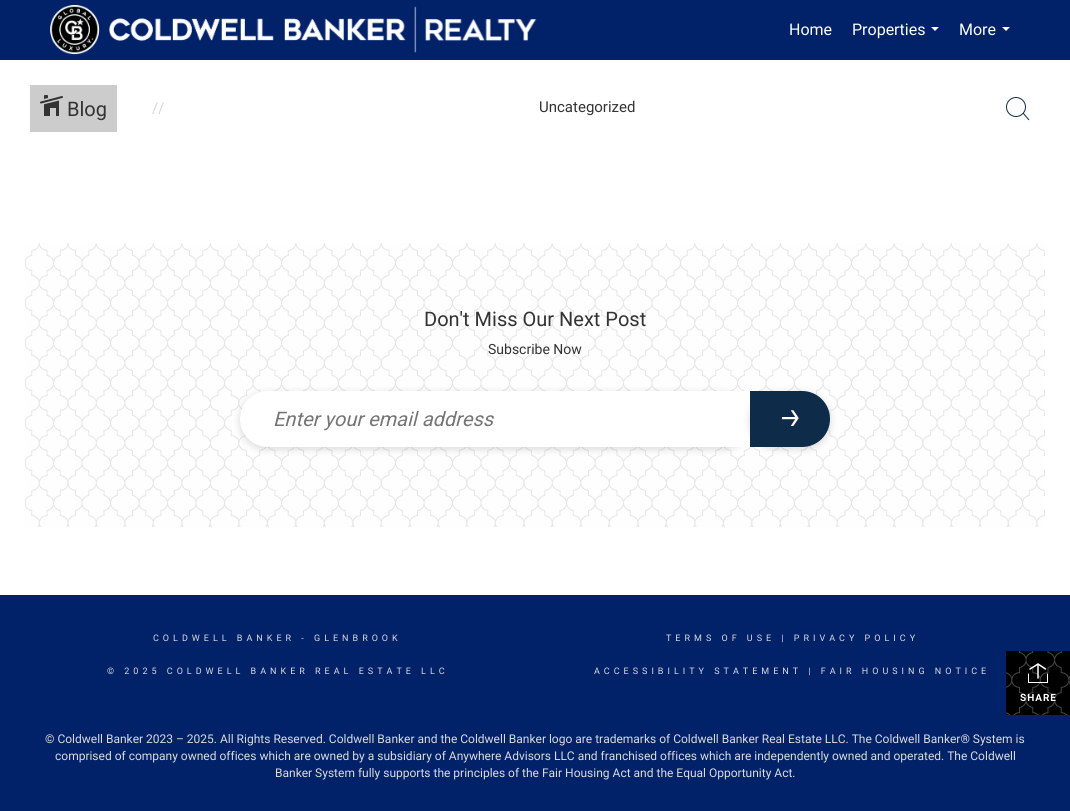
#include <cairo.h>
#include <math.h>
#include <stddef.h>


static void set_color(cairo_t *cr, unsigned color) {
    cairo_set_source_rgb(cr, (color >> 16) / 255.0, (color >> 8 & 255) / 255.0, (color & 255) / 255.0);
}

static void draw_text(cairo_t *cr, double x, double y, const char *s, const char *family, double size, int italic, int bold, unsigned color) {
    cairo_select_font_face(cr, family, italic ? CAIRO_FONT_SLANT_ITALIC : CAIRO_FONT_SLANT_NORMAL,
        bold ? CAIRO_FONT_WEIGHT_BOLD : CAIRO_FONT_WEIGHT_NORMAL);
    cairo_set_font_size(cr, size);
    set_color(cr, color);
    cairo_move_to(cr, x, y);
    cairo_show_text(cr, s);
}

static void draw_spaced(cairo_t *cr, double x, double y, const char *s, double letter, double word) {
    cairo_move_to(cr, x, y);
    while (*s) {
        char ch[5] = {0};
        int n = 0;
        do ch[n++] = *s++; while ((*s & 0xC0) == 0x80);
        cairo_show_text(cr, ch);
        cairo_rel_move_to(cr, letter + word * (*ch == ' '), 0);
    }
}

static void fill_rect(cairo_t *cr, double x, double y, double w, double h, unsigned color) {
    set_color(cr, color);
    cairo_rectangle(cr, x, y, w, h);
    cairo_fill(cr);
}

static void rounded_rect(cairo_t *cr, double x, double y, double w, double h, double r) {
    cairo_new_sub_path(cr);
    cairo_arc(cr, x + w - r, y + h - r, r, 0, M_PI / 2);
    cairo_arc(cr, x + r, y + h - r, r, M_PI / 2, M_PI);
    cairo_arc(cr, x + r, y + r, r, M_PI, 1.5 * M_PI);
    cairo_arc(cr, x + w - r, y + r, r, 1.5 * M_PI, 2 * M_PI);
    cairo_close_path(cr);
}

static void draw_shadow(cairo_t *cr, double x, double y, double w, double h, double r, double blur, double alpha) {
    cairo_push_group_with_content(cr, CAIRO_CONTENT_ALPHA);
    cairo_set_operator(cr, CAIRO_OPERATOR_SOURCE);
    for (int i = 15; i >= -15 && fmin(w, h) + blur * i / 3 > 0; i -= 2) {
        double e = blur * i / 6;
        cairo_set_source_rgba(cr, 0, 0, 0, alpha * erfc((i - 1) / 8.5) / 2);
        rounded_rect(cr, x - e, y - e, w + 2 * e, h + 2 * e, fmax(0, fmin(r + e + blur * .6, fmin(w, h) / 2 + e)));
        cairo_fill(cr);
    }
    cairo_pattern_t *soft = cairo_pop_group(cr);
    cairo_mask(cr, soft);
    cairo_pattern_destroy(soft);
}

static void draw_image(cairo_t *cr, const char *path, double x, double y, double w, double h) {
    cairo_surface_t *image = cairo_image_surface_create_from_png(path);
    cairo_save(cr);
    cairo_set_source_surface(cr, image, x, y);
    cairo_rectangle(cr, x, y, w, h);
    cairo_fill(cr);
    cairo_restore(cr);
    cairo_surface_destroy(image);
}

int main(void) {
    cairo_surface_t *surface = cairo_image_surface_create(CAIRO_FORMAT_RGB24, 1070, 811);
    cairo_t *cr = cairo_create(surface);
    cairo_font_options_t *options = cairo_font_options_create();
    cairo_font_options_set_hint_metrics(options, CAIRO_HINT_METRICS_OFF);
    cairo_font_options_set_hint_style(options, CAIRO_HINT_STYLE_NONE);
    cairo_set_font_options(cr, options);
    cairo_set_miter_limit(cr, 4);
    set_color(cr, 0xFFFFFF);
    cairo_paint(cr);
    fill_rect(cr, 0, 0, 1070, 60, 0x012169);
    draw_image(cr, "assets/img1.png", 50, 5, 487, 50);
    draw_text(cr, 789, 35, "Home", "Roboto", 16, 0, 0, 0xFFFFFF);
    draw_text(cr, 852, 35, "Properties", "Roboto", 16, 0, 0, 0xFFFFFF);
    cairo_new_path(cr);
    cairo_move_to(cr, 931, 27);
    cairo_line_to(cr, 939, 27);
    cairo_line_to(cr, 935, 31);
    cairo_close_path(cr);
    cairo_fill(cr);
    draw_text(cr, 959, 35, "More", "Roboto", 16, 0, 0, 0xFFFFFF);
    cairo_new_path(cr);
    cairo_move_to(cr, 1002, 27);
    cairo_line_to(cr, 1010, 27);
    cairo_line_to(cr, 1006, 31);
    cairo_close_path(cr);
    cairo_fill(cr);
    fill_rect(cr, 30, 85, 87, 47, 0xCCCCCC);
    draw_image(cr, "assets/img2.png", 40, 95, 23, 21);
    draw_text(cr, 67, 116, "Blog", "Roboto", 20, 0, 0, 0x333333);
    draw_text(cr, 152, 113, "//", "Roboto", 15, 0, 0, 0xD5D5D5);
    draw_text(cr, 539, 112, "Uncategorized", "Roboto", 15, 0, 0, 0x333333);
    cairo_new_path(cr);
    cairo_arc(cr, 1016, 107, 9.5, 0, 2 * M_PI);
    set_color(cr, 0x0E2B4A);
    cairo_set_line_width(cr, 1);
    cairo_stroke(cr);
    cairo_new_path(cr);
    cairo_move_to(cr, 1023, 113);
    cairo_line_to(cr, 1029, 120);
    cairo_stroke(cr);
    fill_rect(cr, 0, 595, 1070, 216, 0x012169);
    draw_image(cr, "assets/img3.png", 1006, 651, 64, 64);
    draw_image(cr, "assets/img4.png", 1028, 663, 20, 20);
    cairo_select_font_face(cr, "Roboto", CAIRO_FONT_SLANT_NORMAL, CAIRO_FONT_WEIGHT_BOLD);
    cairo_set_font_size(cr, 10);
    set_color(cr, 0xFFFFFF);
    draw_spaced(cr, 1020, 701, "SHARE", 1, 0);
    fill_rect(cr, 25, 243, 1020, 284, 0xFCFCFC);
    draw_image(cr, "assets/img5.png", 25, 243, 1020, 284);
    draw_text(cr, 424, 326, "Don't Miss Our Next Post", "Roboto", 20, 0, 0, 0x333333);
    draw_text(cr, 488, 354, "Subscribe Now", "Roboto", 14, 0, 0, 0x333333);
    set_color(cr, 0x000000);
    draw_shadow(cr, 240, 393, 510, 56, 28, 4, 0.15);
    set_color(cr, 0xFFFFFF);
    cairo_new_path(cr);
    cairo_move_to(cr, 268, 391);
    cairo_line_to(cr, 750, 391);
    cairo_line_to(cr, 750, 447);
    cairo_line_to(cr, 268, 447);
    cairo_curve_to(cr, 252.5, 447, 240, 434.5, 240, 419);
    cairo_curve_to(cr, 240, 403.5, 252.5, 391, 268, 391);
    cairo_close_path(cr);
    cairo_fill(cr);
    draw_text(cr, 273, 426, "Enter your email address", "Roboto", 20, 1, 0, 0x757575);
    set_color(cr, 0x000000);
    draw_shadow(cr, 750, 393, 80, 56, 28, 4, 0.15);
    set_color(cr, 0x0E2B4A);
    cairo_new_path(cr);
    cairo_move_to(cr, 750, 391);
    cairo_line_to(cr, 802, 391);
    cairo_curve_to(cr, 817.5, 391, 830, 403.5, 830, 419);
    cairo_curve_to(cr, 830, 434.5, 817.5, 447, 802, 447);
    cairo_line_to(cr, 750, 447);
    cairo_close_path(cr);
    cairo_fill(cr);
    draw_image(cr, "assets/img6.png", 781, 410, 18, 16);
    cairo_select_font_face(cr, "Roboto", CAIRO_FONT_SLANT_NORMAL, CAIRO_FONT_WEIGHT_NORMAL);
    cairo_set_font_size(cr, 9);
    set_color(cr, 0xDBDBDB);
    draw_spaced(cr, 153, 641, "COLDWELL BANKER - GLENBROOK", 4, 0);
    draw_spaced(cr, 107, 674, "© 2025 COLDWELL BANKER REAL ESTATE LLC", 4, 0);
    draw_spaced(cr, 666, 641, "TERMS OF USE | PRIVACY POLICY", 4, 0);
    draw_spaced(cr, 594, 674, "ACCESSIBILITY STATEMENT | FAIR HOUSING NOTICE", 4, 0);
    draw_text(cr, 45, 743, "© Coldwell Banker 2023 – 2025. All Rights Reserved. Coldwell Banker and the Coldwell Banker logo are trademarks of Coldwell Banker Real Estate LLC. The Coldwell Banker® System is", "Roboto", 12, 0, 0, 0xDBDBDB);
    draw_text(cr, 55, 760, "comprised of company owned offices which are owned by a subsidiary of Anywhere Advisors LLC and franchised offices which are independently owned and operated. The Coldwell", "Roboto", 12, 0, 0, 0xDBDBDB);
    draw_text(cr, 275, 777, "Banker System fully supports the principles of the Fair Housing Act and the Equal Opportunity Act.", "Roboto", 12, 0, 0, 0xDBDBDB);
    cairo_surface_write_to_png(surface, "output.png");
    cairo_font_options_destroy(options);
    cairo_destroy(cr);
    cairo_surface_destroy(surface);
    return 0;
}
